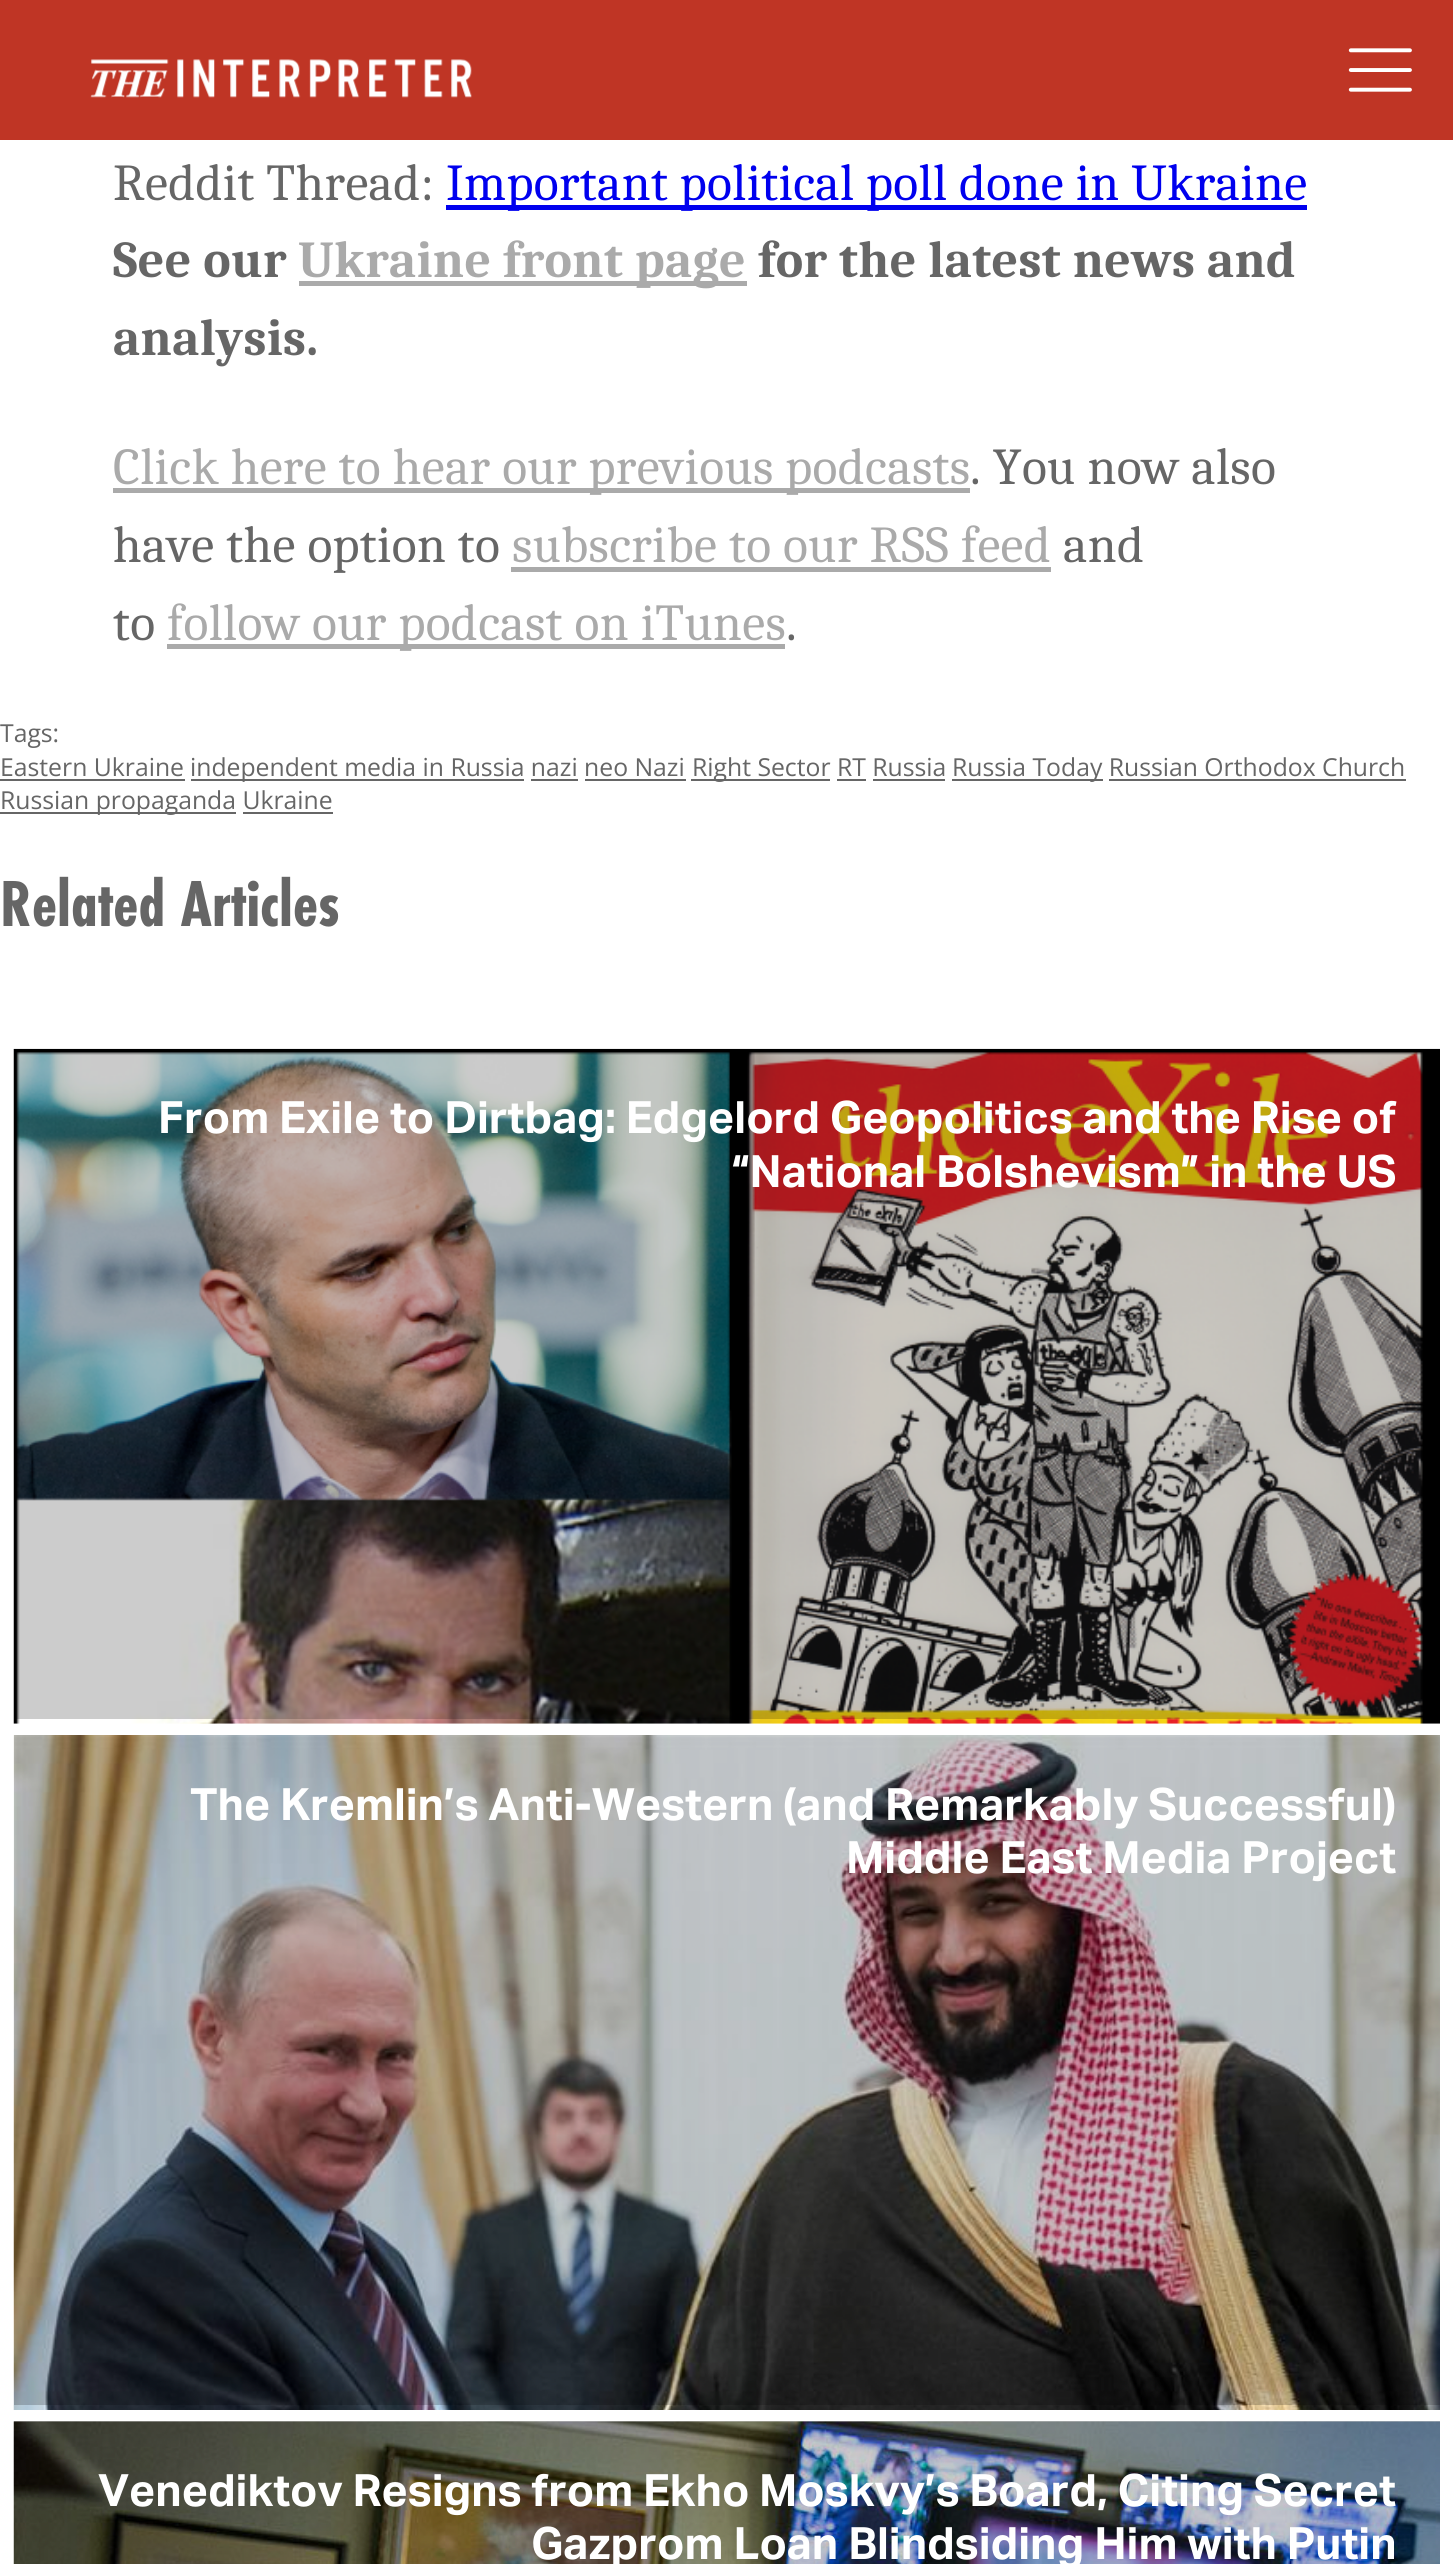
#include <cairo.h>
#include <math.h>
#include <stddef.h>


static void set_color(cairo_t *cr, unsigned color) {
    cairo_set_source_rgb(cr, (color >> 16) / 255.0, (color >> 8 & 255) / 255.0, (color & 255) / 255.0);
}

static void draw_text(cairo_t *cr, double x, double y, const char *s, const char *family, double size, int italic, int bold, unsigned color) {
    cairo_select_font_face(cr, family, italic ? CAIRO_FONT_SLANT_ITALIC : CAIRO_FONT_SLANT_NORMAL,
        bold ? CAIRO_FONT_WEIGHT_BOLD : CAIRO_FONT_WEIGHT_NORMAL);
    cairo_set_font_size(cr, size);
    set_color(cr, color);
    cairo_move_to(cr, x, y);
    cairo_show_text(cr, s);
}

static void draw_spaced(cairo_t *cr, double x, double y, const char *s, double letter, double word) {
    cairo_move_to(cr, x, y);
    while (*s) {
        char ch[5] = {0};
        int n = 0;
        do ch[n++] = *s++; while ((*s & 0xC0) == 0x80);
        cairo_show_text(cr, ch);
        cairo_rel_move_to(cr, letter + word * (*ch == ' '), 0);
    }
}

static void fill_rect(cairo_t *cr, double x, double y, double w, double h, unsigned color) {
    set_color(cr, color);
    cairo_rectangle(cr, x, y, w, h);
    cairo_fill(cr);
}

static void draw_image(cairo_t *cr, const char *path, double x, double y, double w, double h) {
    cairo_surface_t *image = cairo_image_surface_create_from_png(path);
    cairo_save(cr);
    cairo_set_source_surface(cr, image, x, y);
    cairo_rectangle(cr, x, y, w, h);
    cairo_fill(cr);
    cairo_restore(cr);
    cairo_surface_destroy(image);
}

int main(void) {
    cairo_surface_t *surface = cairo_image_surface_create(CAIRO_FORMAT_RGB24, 1453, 2564);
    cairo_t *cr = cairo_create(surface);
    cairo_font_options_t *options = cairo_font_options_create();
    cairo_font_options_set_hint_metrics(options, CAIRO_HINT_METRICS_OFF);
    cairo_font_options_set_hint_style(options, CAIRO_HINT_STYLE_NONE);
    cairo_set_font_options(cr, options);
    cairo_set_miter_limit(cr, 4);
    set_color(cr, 0xFFFFFF);
    cairo_paint(cr);
    fill_rect(cr, 0, 0, 1453, 140, 0xBF3525);
    draw_image(cr, "assets/img1.png", 90, 59, 382, 39);
    draw_image(cr, "assets/img2.png", 1348, 48, 64, 44);
    cairo_select_font_face(cr, "Caladea", CAIRO_FONT_SLANT_NORMAL, CAIRO_FONT_WEIGHT_NORMAL);
    cairo_set_font_size(cr, 51.75);
    set_color(cr, 0x666666);
    draw_spaced(cr, 113, 200, "Reddit Thread:", 0.35, 0);
    fill_rect(cr, 446, 205, 861, 5, 0x0000EE);
    draw_spaced(cr, 446, 200, "Important political poll done in Ukraine", 0.35, 0);
    cairo_select_font_face(cr, "Caladea", CAIRO_FONT_SLANT_NORMAL, CAIRO_FONT_WEIGHT_BOLD);
    set_color(cr, 0x666666);
    draw_spaced(cr, 113, 277, "See our", 0.35, 0);
    fill_rect(cr, 299, 281, 448, 5, 0xAAAAAA);
    draw_spaced(cr, 298, 277, "Ukraine front page", 0.35, 0);
    set_color(cr, 0x666666);
    draw_spaced(cr, 758, 277, "for the latest news and", 0.35, 0);
    draw_spaced(cr, 113, 355, "analysis.", 0.35, 0);
    fill_rect(cr, 113, 488, 857, 5, 0xAAAAAA);
    cairo_select_font_face(cr, "Caladea", CAIRO_FONT_SLANT_NORMAL, CAIRO_FONT_WEIGHT_NORMAL);
    draw_spaced(cr, 113, 484, "Click here to hear our previous podcasts", 0.35, 0);
    set_color(cr, 0x666666);
    draw_spaced(cr, 970, 484, ". You now also", 0.35, 0);
    draw_spaced(cr, 113, 562, "have the option to", 0.35, 0);
    set_color(cr, 0xAAAAAA);
    draw_spaced(cr, 512, 562, "subscribe to our RSS feed", 0.35, 0);
    fill_rect(cr, 511, 567, 540, 5, 0xAAAAAA);
    set_color(cr, 0x666666);
    draw_spaced(cr, 1063, 562, "and", 0.35, 0);
    draw_spaced(cr, 113, 640, "to", 0.35, 0);
    fill_rect(cr, 167, 644, 618, 5, 0xAAAAAA);
    draw_spaced(cr, 167, 640, "follow our podcast on iTunes", 0.35, 0);
    set_color(cr, 0x666666);
    draw_spaced(cr, 786, 640, ".", 0.35, 0);
    draw_text(cr, 0, 742, "Tags:", "Open Sans", 24.75, 0, 0, 0x666666);
    draw_text(cr, 0, 776, "Eastern Ukraine", "Open Sans", 24.75, 0, 0, 0x666666);
    fill_rect(cr, 0, 779, 185, 2, 0x666666);
    fill_rect(cr, 191, 779, 333, 2, 0x666666);
    draw_text(cr, 190, 776, "independent media in Russia nazi neo Nazi", "Open Sans", 24.75, 0, 0, 0x666666);
    fill_rect(cr, 691, 779, 139, 2, 0x666666);
    draw_text(cr, 692, 776, "Right Sector RT Russia", "Open Sans", 24.75, 0, 0, 0x666666);
    fill_rect(cr, 952, 779, 151, 2, 0x666666);
    draw_text(cr, 952, 776, "Russia Today Russian Orthodox Church", "Open Sans", 24.75, 0, 0, 0x666666);
    fill_rect(cr, 531, 779, 47, 2, 0x666666);
    fill_rect(cr, 585, 779, 101, 2, 0x666666);
    fill_rect(cr, 837, 779, 29, 2, 0x666666);
    fill_rect(cr, 873, 779, 72, 2, 0x666666);
    fill_rect(cr, 1109, 779, 297, 2, 0x666666);
    fill_rect(cr, 0, 812, 236, 2, 0x666666);
    draw_text(cr, 0, 809, "Russian propaganda Ukraine", "Open Sans", 24.75, 0, 0, 0x666666);
    fill_rect(cr, 243, 812, 90, 2, 0x666666);
    draw_text(cr, 0, 926, "Related Articles", "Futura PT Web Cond", 67.5, 0, 1, 0x666666);
    draw_image(cr, "assets/img3.png", 13, 1048, 1427, 676);
    cairo_select_font_face(cr, "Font", CAIRO_FONT_SLANT_NORMAL, CAIRO_FONT_WEIGHT_BOLD);
    cairo_set_font_size(cr, 44.55);
    set_color(cr, 0xFFFFFF);
    draw_spaced(cr, 158, 1133, "From Exile to Dirtbag: Edgelord Geopolitics and the Rise of", 0, -0.1);
    draw_text(cr, 731, 1187, "“National Bolshevism” in the US", "Font", 44.55, 0, 1, 0xFFFFFF);
    draw_image(cr, "assets/img4.png", 13, 1735, 1427, 675);
    draw_spaced(cr, 190, 1820, "The Kremlin’s Anti-Western (and Remarkably Successful)", 0, -0.25);
    draw_text(cr, 846, 1873, "Middle East Media Project", "Font", 44.55, 0, 1, 0xFFFFFF);
    draw_image(cr, "assets/img5.png", 13, 2421, 1427, 143);
    cairo_set_source_rgba(cr, 0, 0, 0, 0.2);
    cairo_rectangle(cr, 14, 2421, 1426, 143);
    cairo_fill(cr);
    set_color(cr, 0xFFFFFF);
    draw_spaced(cr, 98, 2506, "Venediktov Resigns from Ekho Moskvy’s Board, Citing Secret", 0, -0.25);
    draw_text(cr, 531, 2559, "Gazprom Loan Blindsiding Him with Putin", "Font", 44.55, 0, 1, 0xFFFFFF);
    cairo_surface_write_to_png(surface, "output.png");
    cairo_font_options_destroy(options);
    cairo_destroy(cr);
    cairo_surface_destroy(surface);
    return 0;
}
